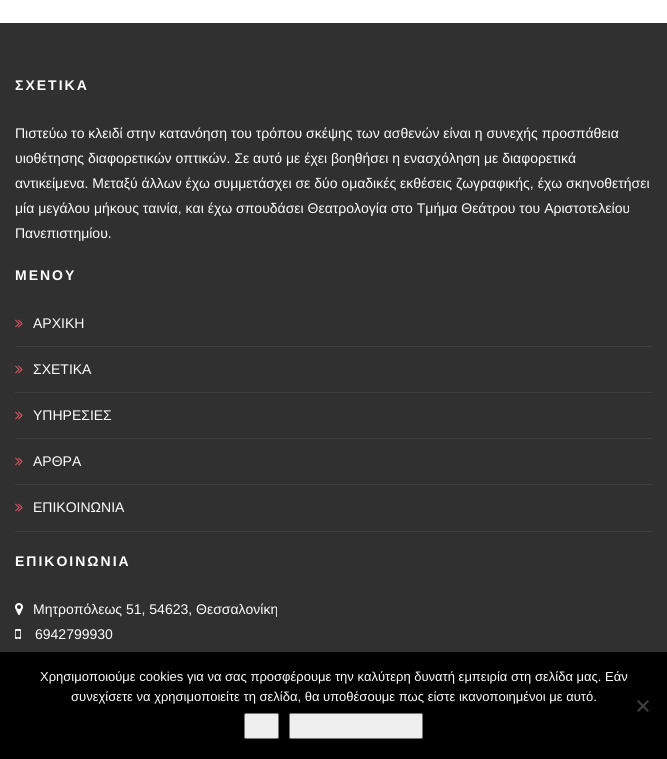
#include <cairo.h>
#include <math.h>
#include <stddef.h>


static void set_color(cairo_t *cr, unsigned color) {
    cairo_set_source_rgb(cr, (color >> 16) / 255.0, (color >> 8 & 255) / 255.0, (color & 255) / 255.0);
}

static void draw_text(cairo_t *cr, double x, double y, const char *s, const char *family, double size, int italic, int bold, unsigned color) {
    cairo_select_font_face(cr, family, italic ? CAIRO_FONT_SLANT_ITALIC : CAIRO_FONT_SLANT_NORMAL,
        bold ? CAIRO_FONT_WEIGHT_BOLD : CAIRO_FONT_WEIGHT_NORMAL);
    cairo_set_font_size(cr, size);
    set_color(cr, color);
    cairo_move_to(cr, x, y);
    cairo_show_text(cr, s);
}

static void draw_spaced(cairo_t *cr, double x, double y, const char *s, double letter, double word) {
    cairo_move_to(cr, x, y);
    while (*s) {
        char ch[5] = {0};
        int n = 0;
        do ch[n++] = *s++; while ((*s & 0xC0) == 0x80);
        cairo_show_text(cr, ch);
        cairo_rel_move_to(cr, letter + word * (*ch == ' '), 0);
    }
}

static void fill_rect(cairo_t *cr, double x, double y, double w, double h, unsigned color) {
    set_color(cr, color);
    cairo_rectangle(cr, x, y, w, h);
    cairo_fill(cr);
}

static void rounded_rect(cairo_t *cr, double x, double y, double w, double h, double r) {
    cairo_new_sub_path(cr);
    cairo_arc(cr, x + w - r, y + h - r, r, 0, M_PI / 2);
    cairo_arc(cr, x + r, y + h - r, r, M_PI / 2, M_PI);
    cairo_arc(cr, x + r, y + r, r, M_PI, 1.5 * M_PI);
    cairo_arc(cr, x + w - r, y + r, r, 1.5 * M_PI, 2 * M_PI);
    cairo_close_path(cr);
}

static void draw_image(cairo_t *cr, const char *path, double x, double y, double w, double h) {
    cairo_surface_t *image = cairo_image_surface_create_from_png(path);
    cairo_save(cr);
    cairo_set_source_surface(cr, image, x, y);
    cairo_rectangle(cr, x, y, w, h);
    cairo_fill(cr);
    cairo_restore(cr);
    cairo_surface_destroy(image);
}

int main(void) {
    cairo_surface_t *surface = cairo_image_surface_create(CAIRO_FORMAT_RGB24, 667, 759);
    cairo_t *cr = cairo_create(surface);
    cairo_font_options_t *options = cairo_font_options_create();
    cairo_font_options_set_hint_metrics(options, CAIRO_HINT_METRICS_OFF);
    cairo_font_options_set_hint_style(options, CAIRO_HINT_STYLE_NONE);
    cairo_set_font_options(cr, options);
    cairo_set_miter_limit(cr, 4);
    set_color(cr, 0xFFFFFF);
    cairo_paint(cr);
    fill_rect(cr, 0, 23, 667, 629, 0x303030);
    cairo_select_font_face(cr, "Liberation Sans", CAIRO_FONT_SLANT_NORMAL, CAIRO_FONT_WEIGHT_BOLD);
    cairo_set_font_size(cr, 14);
    set_color(cr, 0xFFFFFF);
    draw_spaced(cr, 15, 90, "ΣΧΕΤΙΚΑ", 2, 0);
    draw_text(cr, 15, 138, "Πιστεύω το κλειδί στην κατανόηση του τρόπου σκέψης των ασθενών είναι η συνεχής προσπάθεια", "Liberation Sans", 14, 0, 0, 0xFFFFFF);
    draw_text(cr, 15, 163, "υιοθέτησης διαφορετικών οπτικών. Σε αυτό με έχει βοηθήσει η ενασχόληση με διαφορετικά", "Liberation Sans", 14, 0, 0, 0xFFFFFF);
    draw_text(cr, 15, 188, "αντικείμενα. Μεταξύ άλλων έχω συμμετάσχει σε δύο ομαδικές εκθέσεις ζωγραφικής, έχω σκηνοθετήσει", "Liberation Sans", 14, 0, 0, 0xFFFFFF);
    draw_text(cr, 15, 213, "μία μεγάλου μήκους ταινία, και έχω σπουδάσει Θεατρολογία στο Τμήμα Θεάτρου του Αριστοτελείου", "Liberation Sans", 14, 0, 0, 0xFFFFFF);
    draw_text(cr, 15, 238, "Πανεπιστημίου.", "Liberation Sans", 14, 0, 0, 0xFFFFFF);
    cairo_select_font_face(cr, "Liberation Sans", CAIRO_FONT_SLANT_NORMAL, CAIRO_FONT_WEIGHT_BOLD);
    draw_spaced(cr, 15, 280, "ΜΕΝΟΥ", 2, 0);
    fill_rect(cr, 15, 346, 637, 1, 0x3E3E3E);
    draw_image(cr, "assets/img1.png", 15, 319, 8, 9);
    draw_text(cr, 33, 328, "ΑΡΧΙΚΗ", "Liberation Sans", 14, 0, 0, 0xFFFFFF);
    fill_rect(cr, 15, 392, 637, 1, 0x3E3E3E);
    draw_image(cr, "assets/img1.png", 15, 365, 8, 9);
    draw_text(cr, 33, 374, "ΣΧΕΤΙΚΑ", "Liberation Sans", 14, 0, 0, 0xFFFFFF);
    fill_rect(cr, 15, 438, 637, 1, 0x3E3E3E);
    draw_image(cr, "assets/img1.png", 15, 411, 8, 9);
    draw_text(cr, 33, 420, "ΥΠΗΡΕΣΙΕΣ", "Liberation Sans", 14, 0, 0, 0xFFFFFF);
    fill_rect(cr, 15, 484, 637, 1, 0x3E3E3E);
    draw_image(cr, "assets/img1.png", 15, 457, 8, 9);
    draw_text(cr, 33, 466, "ΑΡΘΡΑ", "Liberation Sans", 14, 0, 0, 0xFFFFFF);
    fill_rect(cr, 15, 531, 637, 1, 0x3E3E3E);
    draw_image(cr, "assets/img1.png", 15, 503, 8, 9);
    draw_text(cr, 33, 512, "ΕΠΙΚΟΙΝΩΝΙΑ", "Liberation Sans", 14, 0, 0, 0xFFFFFF);
    cairo_select_font_face(cr, "Liberation Sans", CAIRO_FONT_SLANT_NORMAL, CAIRO_FONT_WEIGHT_BOLD);
    draw_spaced(cr, 15, 566, "ΕΠΙΚΟΙΝΩΝΙΑ", 2, 0);
    draw_image(cr, "assets/img2.png", 15, 603, 8, 12);
    draw_text(cr, 33, 614, "Μητροπόλεως 51, 54623, Θεσσαλονίκη", "Liberation Sans", 14, 0, 0, 0xFFFFFF);
    draw_image(cr, "assets/img3.png", 15, 629, 6, 10);
    draw_text(cr, 35, 639, "6942799930", "Liberation Sans", 14, 0, 0, 0xFFFFFF);
    fill_rect(cr, 0, 652, 667, 107, 0x000000);
    draw_text(cr, 40, 681, "Χρησιμοποιούμε cookies για να σας προσφέρουμε την καλύτερη δυνατή εμπειρία στη σελίδα μας. Εάν", "Liberation Sans", 13, 0, 0, 0xFFFFFF);
    draw_text(cr, 71, 701, "συνεχίσετε να χρησιμοποιείτε τη σελίδα, θα υποθέσουμε πως είστε ικανοποιημένοι με αυτό.", "Liberation Sans", 13, 0, 0, 0xFFFFFF);
    set_color(cr, 0x404040);
    cairo_new_path(cr);
    cairo_move_to(cr, 647.5, 700);
    cairo_line_to(cr, 649, 701.5);
    cairo_line_to(cr, 638.5, 712);
    cairo_line_to(cr, 637, 710.5);
    cairo_close_path(cr);
    cairo_fill(cr);
    cairo_new_path(cr);
    cairo_move_to(cr, 637, 701.5);
    cairo_line_to(cr, 638.5, 700);
    cairo_line_to(cr, 649, 710.5);
    cairo_line_to(cr, 647.5, 712);
    cairo_close_path(cr);
    cairo_fill(cr);
    set_color(cr, 0xEFEFEF);
    rounded_rect(cr, 244.5, 713.5, 34, 25, 1.5);
    cairo_fill_preserve(cr);
    set_color(cr, 0x767676);
    cairo_set_line_width(cr, 1);
    cairo_stroke(cr);
    set_color(cr, 0xEFEFEF);
    rounded_rect(cr, 289.5, 713.5, 133, 25, 1.5);
    cairo_fill_preserve(cr);
    set_color(cr, 0x767676);
    cairo_stroke(cr);
    cairo_surface_write_to_png(surface, "output.png");
    cairo_font_options_destroy(options);
    cairo_destroy(cr);
    cairo_surface_destroy(surface);
    return 0;
}
